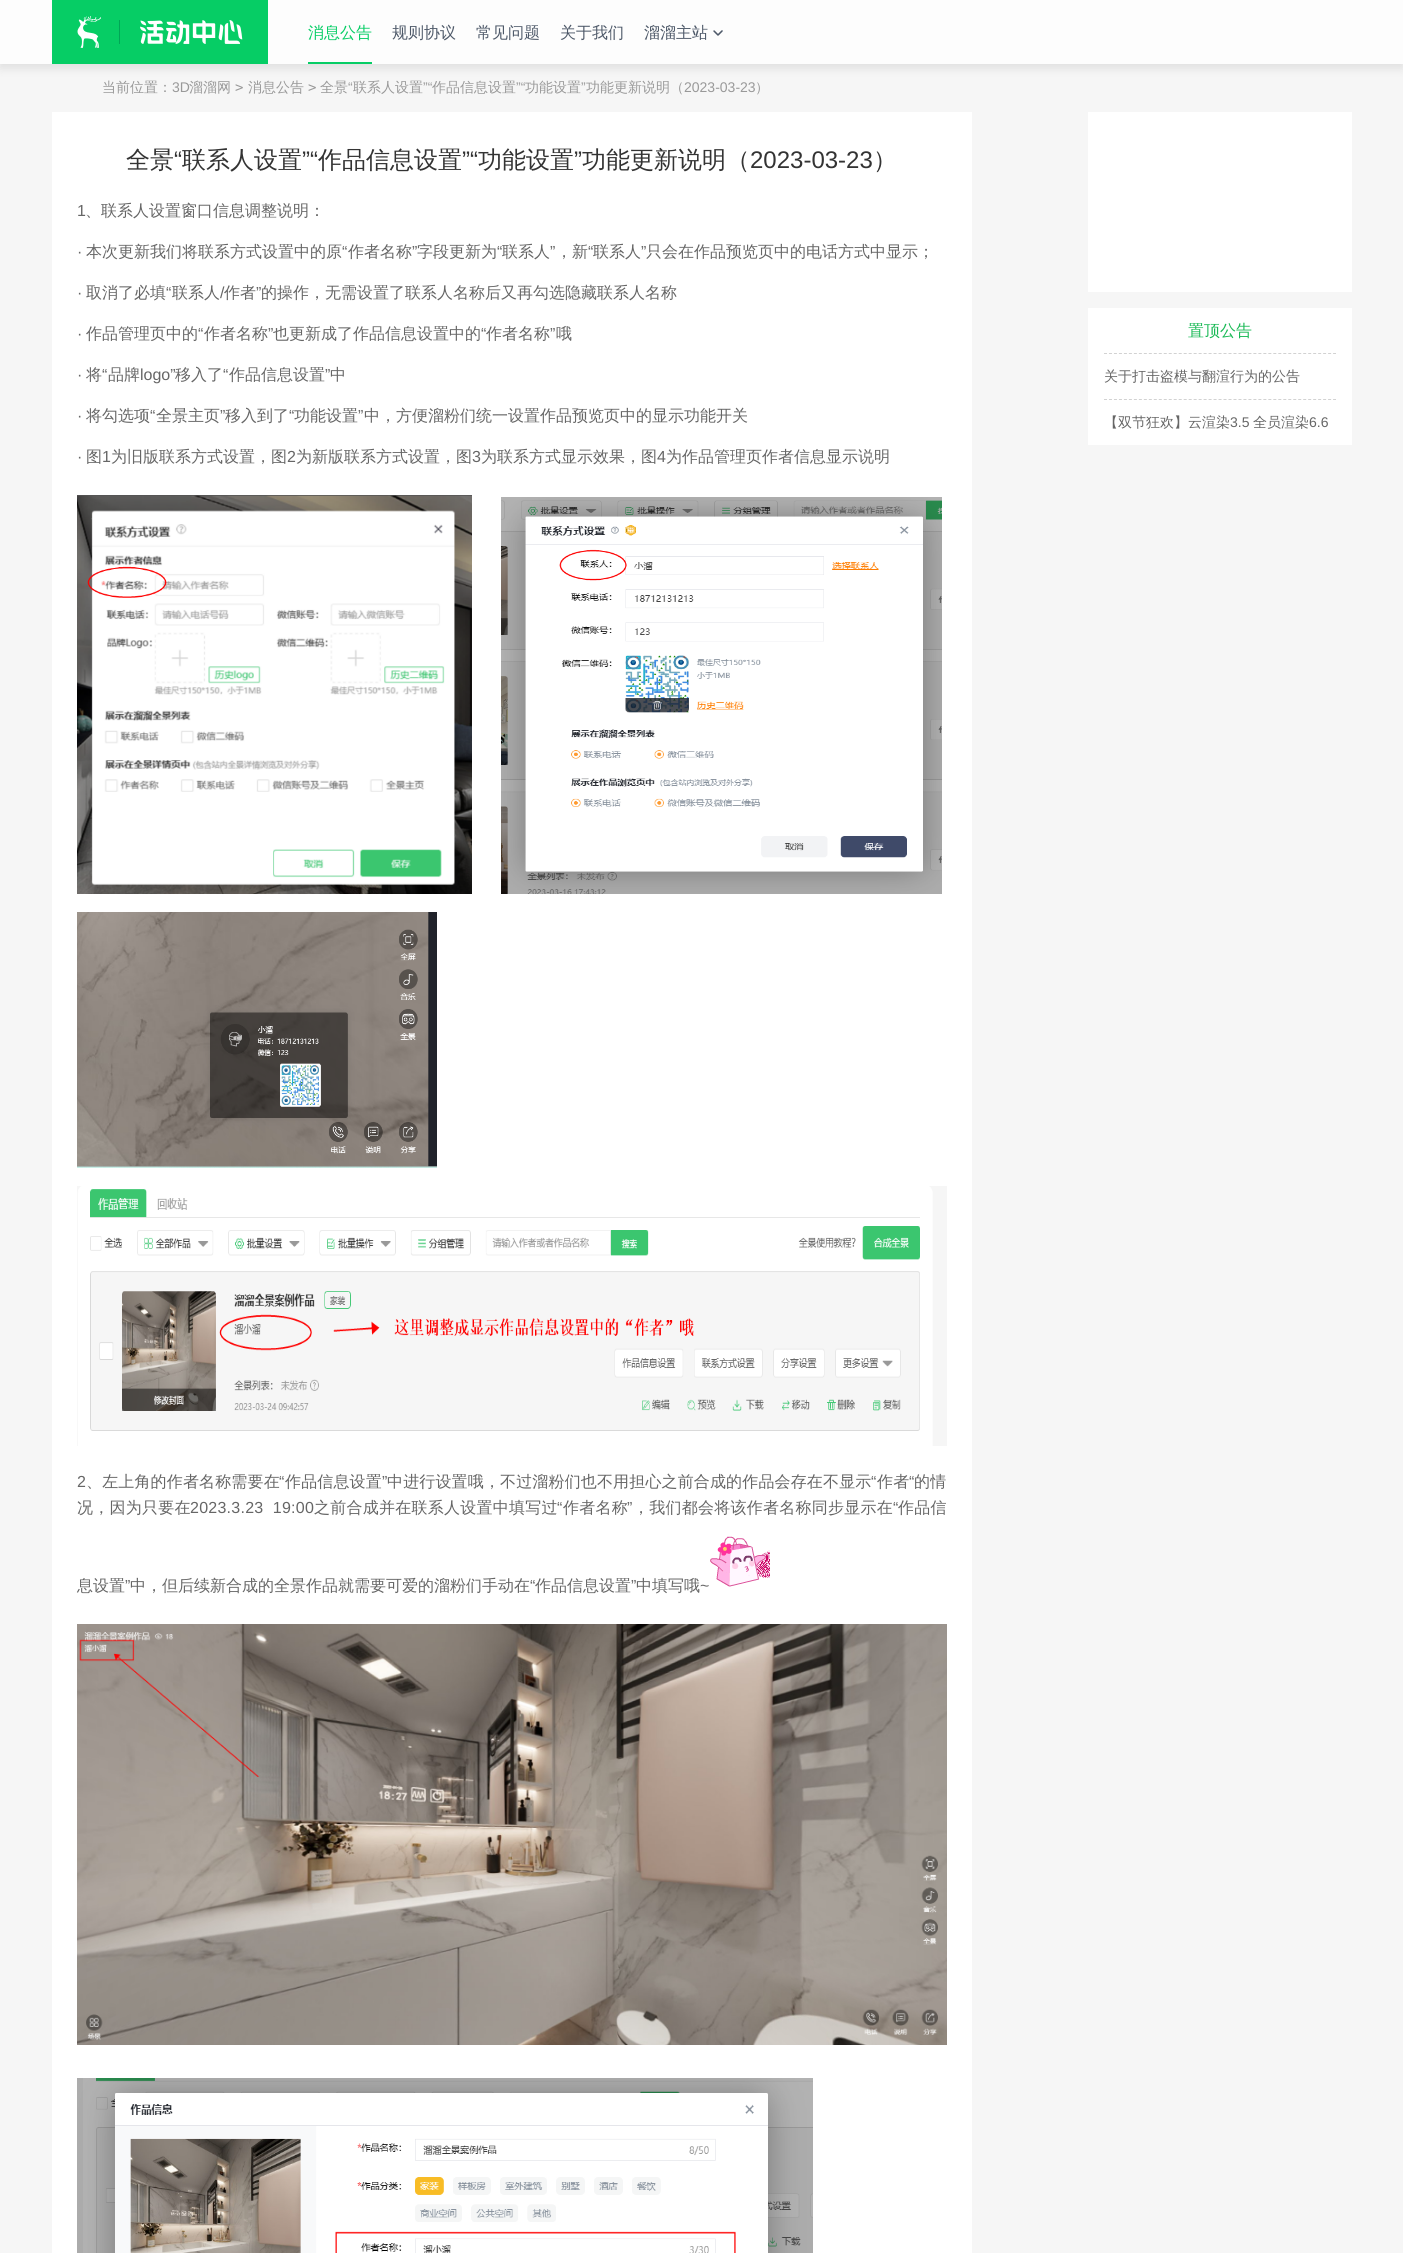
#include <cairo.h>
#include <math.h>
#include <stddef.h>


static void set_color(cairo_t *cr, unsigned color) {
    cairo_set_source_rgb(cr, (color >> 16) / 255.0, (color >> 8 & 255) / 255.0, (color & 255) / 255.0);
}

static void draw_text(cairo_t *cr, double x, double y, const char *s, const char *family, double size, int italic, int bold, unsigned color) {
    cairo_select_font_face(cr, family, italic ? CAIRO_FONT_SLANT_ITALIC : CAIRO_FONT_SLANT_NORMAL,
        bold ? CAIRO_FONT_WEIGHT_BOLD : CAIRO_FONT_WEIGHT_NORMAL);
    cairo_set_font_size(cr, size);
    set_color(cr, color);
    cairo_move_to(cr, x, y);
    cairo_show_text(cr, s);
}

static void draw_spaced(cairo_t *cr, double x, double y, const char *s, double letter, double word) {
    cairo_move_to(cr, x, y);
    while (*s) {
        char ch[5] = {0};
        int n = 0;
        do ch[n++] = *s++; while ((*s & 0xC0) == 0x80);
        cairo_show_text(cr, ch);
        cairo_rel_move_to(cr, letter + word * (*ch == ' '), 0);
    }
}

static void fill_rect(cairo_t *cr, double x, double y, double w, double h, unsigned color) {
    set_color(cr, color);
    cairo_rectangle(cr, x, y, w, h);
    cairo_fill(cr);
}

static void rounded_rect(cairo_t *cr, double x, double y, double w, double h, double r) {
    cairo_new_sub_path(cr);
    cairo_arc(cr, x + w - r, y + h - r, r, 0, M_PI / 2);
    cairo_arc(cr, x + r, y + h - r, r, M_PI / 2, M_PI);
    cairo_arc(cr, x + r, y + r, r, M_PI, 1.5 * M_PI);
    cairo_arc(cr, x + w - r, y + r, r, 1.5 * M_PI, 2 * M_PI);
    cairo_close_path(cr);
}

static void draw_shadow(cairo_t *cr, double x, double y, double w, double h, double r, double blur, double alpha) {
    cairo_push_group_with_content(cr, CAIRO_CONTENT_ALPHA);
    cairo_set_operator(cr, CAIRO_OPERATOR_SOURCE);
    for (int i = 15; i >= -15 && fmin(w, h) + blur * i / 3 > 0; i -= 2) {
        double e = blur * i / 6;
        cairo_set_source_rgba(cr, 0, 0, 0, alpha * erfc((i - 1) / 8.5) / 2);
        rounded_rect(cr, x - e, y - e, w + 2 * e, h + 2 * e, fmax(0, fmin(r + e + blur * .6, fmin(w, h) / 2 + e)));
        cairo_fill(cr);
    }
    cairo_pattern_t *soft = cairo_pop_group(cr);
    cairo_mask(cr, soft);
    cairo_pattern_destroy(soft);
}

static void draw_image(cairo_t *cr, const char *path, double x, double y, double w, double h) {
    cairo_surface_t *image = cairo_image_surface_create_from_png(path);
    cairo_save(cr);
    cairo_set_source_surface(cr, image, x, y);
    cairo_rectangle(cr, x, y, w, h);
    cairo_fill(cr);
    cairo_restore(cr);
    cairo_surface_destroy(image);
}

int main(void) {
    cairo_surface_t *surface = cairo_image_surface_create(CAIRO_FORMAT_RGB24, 1403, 2253);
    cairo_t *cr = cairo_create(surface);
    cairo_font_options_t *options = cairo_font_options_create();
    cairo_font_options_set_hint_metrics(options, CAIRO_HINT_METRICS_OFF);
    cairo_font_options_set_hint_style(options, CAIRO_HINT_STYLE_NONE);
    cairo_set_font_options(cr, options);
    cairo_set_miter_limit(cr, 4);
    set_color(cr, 0xF6F6F6);
    cairo_paint(cr);
    set_color(cr, 0x000000);
    draw_shadow(cr, 0, 4, 1403, 64, 0, 5, 0.1);
    fill_rect(cr, 0, 0, 1403, 64, 0xFDFDFD);
    fill_rect(cr, 52, 0, 216, 64, 0x06CD65);
    draw_image(cr, "assets/img1.png", 77, 16, 24, 32);
    fill_rect(cr, 119, 20, 1, 24, 0x00A656);
    draw_image(cr, "assets/img2.png", 140, 20, 103, 24);
    fill_rect(cr, 308, 62, 64, 2, 0x06CD65);
    draw_text(cr, 308, 38, "消息公告", "WenQuanYi Zen Hei Medium", 16, 0, 0, 0x06CD65);
    draw_text(cr, 392, 38, "规则协议", "WenQuanYi Zen Hei Medium", 16, 0, 0, 0x4E5969);
    draw_text(cr, 476, 38, "常见问题", "WenQuanYi Zen Hei Medium", 16, 0, 0, 0x4E5969);
    draw_text(cr, 560, 38, "关于我们", "WenQuanYi Zen Hei Medium", 16, 0, 0, 0x4E5969);
    draw_text(cr, 644, 38, "溜溜主站", "WenQuanYi Zen Hei Medium", 16, 0, 0, 0x4E5969);
    draw_image(cr, "assets/img3.png", 713, 30, 10, 6);
    draw_text(cr, 102, 92, "当前位置：", "WenQuanYi Zen Hei Medium", 14, 0, 0, 0x999999);
    draw_text(cr, 172, 92, "3D", "Liberation Sans", 14, 0, 0, 0x999999);
    draw_text(cr, 189, 92, "溜溜网", "WenQuanYi Zen Hei Medium", 14, 0, 0, 0x999999);
    draw_text(cr, 235, 92, ">", "DejaVu Sans Mono", 14, 0, 0, 0x999999);
    draw_text(cr, 248, 92, "消息公告", "WenQuanYi Zen Hei Medium", 14, 0, 0, 0x999999);
    draw_text(cr, 308, 92, ">", "DejaVu Sans Mono", 14, 0, 0, 0x999999);
    draw_text(cr, 320, 92, "全景", "WenQuanYi Zen Hei Medium", 14, 0, 0, 0x999999);
    draw_text(cr, 348, 92, "“", "Liberation Sans", 14, 0, 0, 0x999999);
    draw_text(cr, 353, 92, "联系人设置", "WenQuanYi Zen Hei Medium", 14, 0, 0, 0x999999);
    draw_text(cr, 423, 92, "”“", "Liberation Sans", 14, 0, 0, 0x999999);
    draw_text(cr, 432, 92, "作品信息设置", "WenQuanYi Zen Hei Medium", 14, 0, 0, 0x999999);
    draw_text(cr, 516, 92, "”“", "Liberation Sans", 14, 0, 0, 0x999999);
    draw_text(cr, 525, 92, "功能设置", "WenQuanYi Zen Hei Medium", 14, 0, 0, 0x999999);
    draw_text(cr, 581, 92, "”", "Liberation Sans", 14, 0, 0, 0x999999);
    draw_text(cr, 586, 92, "功能更新说明（", "WenQuanYi Zen Hei Medium", 14, 0, 0, 0x999999);
    draw_text(cr, 684, 92, "2023-03-23", "Liberation Sans", 14, 0, 0, 0x999999);
    draw_text(cr, 755, 92, "）", "WenQuanYi Zen Hei Medium", 14, 0, 0, 0x999999);
    fill_rect(cr, 52, 112, 920, 2141, 0xFFFFFF);
    draw_text(cr, 126, 168, "全景", "WenQuanYi Zen Hei Medium", 24, 0, 0, 0x333333);
    draw_text(cr, 174, 168, "“", "Liberation Sans", 24, 0, 0, 0x333333);
    draw_text(cr, 182, 168, "联系人设置", "WenQuanYi Zen Hei Medium", 24, 0, 0, 0x333333);
    draw_text(cr, 302, 168, "”“", "Liberation Sans", 24, 0, 0, 0x333333);
    draw_text(cr, 318, 168, "作品信息设置", "WenQuanYi Zen Hei Medium", 24, 0, 0, 0x333333);
    draw_text(cr, 462, 168, "”“", "Liberation Sans", 24, 0, 0, 0x333333);
    draw_text(cr, 478, 168, "功能设置", "WenQuanYi Zen Hei Medium", 24, 0, 0, 0x333333);
    draw_text(cr, 574, 168, "”", "Liberation Sans", 24, 0, 0, 0x333333);
    draw_text(cr, 582, 168, "功能更新说明（", "WenQuanYi Zen Hei Medium", 24, 0, 0, 0x333333);
    draw_text(cr, 750, 168, "2023-03-23", "Liberation Sans", 24, 0, 0, 0x333333);
    draw_text(cr, 873, 168, "）", "WenQuanYi Zen Hei Medium", 24, 0, 0, 0x333333);
    draw_text(cr, 77, 216, "1", "Liberation Sans", 16, 0, 0, 0x666666);
    draw_text(cr, 85, 216, "、联系人设置窗口信息调整说明：", "WenQuanYi Zen Hei Medium", 16, 0, 0, 0x666666);
    draw_text(cr, 86, 257, "本次更新我们将联系方式设置中的原", "WenQuanYi Zen Hei Medium", 16, 0, 0, 0x666666);
    draw_text(cr, 342, 257, "“", "Liberation Sans", 16, 0, 0, 0x666666);
    draw_text(cr, 348, 257, "作者名称", "WenQuanYi Zen Hei Medium", 16, 0, 0, 0x666666);
    draw_text(cr, 412, 257, "”", "Liberation Sans", 16, 0, 0, 0x666666);
    draw_text(cr, 417, 257, "字段更新为", "WenQuanYi Zen Hei Medium", 16, 0, 0, 0x666666);
    draw_text(cr, 497, 257, "“", "Liberation Sans", 16, 0, 0, 0x666666);
    draw_text(cr, 502, 257, "联系人", "WenQuanYi Zen Hei Medium", 16, 0, 0, 0x666666);
    draw_text(cr, 550, 257, "”", "Liberation Sans", 16, 0, 0, 0x666666);
    draw_text(cr, 556, 257, "，新", "WenQuanYi Zen Hei Medium", 16, 0, 0, 0x666666);
    draw_text(cr, 588, 257, "“", "Liberation Sans", 16, 0, 0, 0x666666);
    draw_text(cr, 593, 257, "联系人", "WenQuanYi Zen Hei Medium", 16, 0, 0, 0x666666);
    draw_text(cr, 641, 257, "”", "Liberation Sans", 16, 0, 0, 0x666666);
    draw_text(cr, 646, 257, "只会在作品预览页中的电话方式中显示；", "WenQuanYi Zen Hei Medium", 16, 0, 0, 0x666666);
    draw_text(cr, 77, 257, "·", "Liberation Sans", 16, 0, 0, 0x666666);
    draw_text(cr, 86, 298, "取消了必填", "WenQuanYi Zen Hei Medium", 16, 0, 0, 0x666666);
    draw_text(cr, 166, 298, "“", "Liberation Sans", 16, 0, 0, 0x666666);
    draw_text(cr, 172, 298, "联系人", "WenQuanYi Zen Hei Medium", 16, 0, 0, 0x666666);
    draw_text(cr, 220, 298, "/", "Liberation Sans", 16, 0, 0, 0x666666);
    draw_text(cr, 224, 298, "作者", "WenQuanYi Zen Hei Medium", 16, 0, 0, 0x666666);
    draw_text(cr, 256, 298, "”", "Liberation Sans", 16, 0, 0, 0x666666);
    draw_text(cr, 261, 298, "的操作，无需设置了联系人名称后又再勾选隐藏联系人名称", "WenQuanYi Zen Hei Medium", 16, 0, 0, 0x666666);
    draw_text(cr, 77, 298, "·", "Liberation Sans", 16, 0, 0, 0x666666);
    draw_text(cr, 86, 339, "作品管理页中的", "WenQuanYi Zen Hei Medium", 16, 0, 0, 0x666666);
    draw_text(cr, 198, 339, "“", "Liberation Sans", 16, 0, 0, 0x666666);
    draw_text(cr, 204, 339, "作者名称", "WenQuanYi Zen Hei Medium", 16, 0, 0, 0x666666);
    draw_text(cr, 268, 339, "”", "Liberation Sans", 16, 0, 0, 0x666666);
    draw_text(cr, 273, 339, "也更新成了作品信息设置中的", "WenQuanYi Zen Hei Medium", 16, 0, 0, 0x666666);
    draw_text(cr, 481, 339, "“", "Liberation Sans", 16, 0, 0, 0x666666);
    draw_text(cr, 486, 339, "作者名称", "WenQuanYi Zen Hei Medium", 16, 0, 0, 0x666666);
    draw_text(cr, 550, 339, "”", "Liberation Sans", 16, 0, 0, 0x666666);
    draw_text(cr, 556, 339, "哦", "WenQuanYi Zen Hei Medium", 16, 0, 0, 0x666666);
    draw_text(cr, 77, 339, "·", "Liberation Sans", 16, 0, 0, 0x666666);
    draw_text(cr, 86, 380, "将", "WenQuanYi Zen Hei Medium", 16, 0, 0, 0x666666);
    draw_text(cr, 102, 380, "“", "Liberation Sans", 16, 0, 0, 0x666666);
    draw_text(cr, 108, 380, "品牌", "WenQuanYi Zen Hei Medium", 16, 0, 0, 0x666666);
    draw_text(cr, 140, 380, "logo”", "Liberation Sans", 16, 0, 0, 0x666666);
    draw_text(cr, 175, 380, "移入了", "WenQuanYi Zen Hei Medium", 16, 0, 0, 0x666666);
    draw_text(cr, 223, 380, "“", "Liberation Sans", 16, 0, 0, 0x666666);
    draw_text(cr, 229, 380, "作品信息设置", "WenQuanYi Zen Hei Medium", 16, 0, 0, 0x666666);
    draw_text(cr, 325, 380, "”", "Liberation Sans", 16, 0, 0, 0x666666);
    draw_text(cr, 330, 380, "中", "WenQuanYi Zen Hei Medium", 16, 0, 0, 0x666666);
    draw_text(cr, 77, 380, "·", "Liberation Sans", 16, 0, 0, 0x666666);
    draw_text(cr, 86, 421, "将勾选项", "WenQuanYi Zen Hei Medium", 16, 0, 0, 0x666666);
    draw_text(cr, 150, 421, "“", "Liberation Sans", 16, 0, 0, 0x666666);
    draw_text(cr, 156, 421, "全景主页", "WenQuanYi Zen Hei Medium", 16, 0, 0, 0x666666);
    draw_text(cr, 220, 421, "”", "Liberation Sans", 16, 0, 0, 0x666666);
    draw_text(cr, 225, 421, "移入到了", "WenQuanYi Zen Hei Medium", 16, 0, 0, 0x666666);
    draw_text(cr, 289, 421, "“", "Liberation Sans", 16, 0, 0, 0x666666);
    draw_text(cr, 294, 421, "功能设置", "WenQuanYi Zen Hei Medium", 16, 0, 0, 0x666666);
    draw_text(cr, 358, 421, "”", "Liberation Sans", 16, 0, 0, 0x666666);
    draw_text(cr, 364, 421, "中，方便溜粉们统一设置作品预览页中的显示功能开关", "WenQuanYi Zen Hei Medium", 16, 0, 0, 0x666666);
    draw_text(cr, 77, 421, "·", "Liberation Sans", 16, 0, 0, 0x666666);
    draw_text(cr, 77, 462, "·", "Liberation Sans", 16, 0, 0, 0x666666);
    draw_text(cr, 86, 462, "图", "WenQuanYi Zen Hei Medium", 16, 0, 0, 0x666666);
    draw_text(cr, 102, 462, "1", "Liberation Sans", 16, 0, 0, 0x666666);
    draw_text(cr, 111, 462, "为旧版联系方式设置，图", "WenQuanYi Zen Hei Medium", 16, 0, 0, 0x666666);
    draw_text(cr, 287, 462, "2", "Liberation Sans", 16, 0, 0, 0x666666);
    draw_text(cr, 296, 462, "为新版联系方式设置，图", "WenQuanYi Zen Hei Medium", 16, 0, 0, 0x666666);
    draw_text(cr, 472, 462, "3", "Liberation Sans", 16, 0, 0, 0x666666);
    draw_text(cr, 481, 462, "为联系方式显示效果，图", "WenQuanYi Zen Hei Medium", 16, 0, 0, 0x666666);
    draw_text(cr, 657, 462, "4", "Liberation Sans", 16, 0, 0, 0x666666);
    draw_text(cr, 666, 462, "为作品管理页作者信息显示说明", "WenQuanYi Zen Hei Medium", 16, 0, 0, 0x666666);
    draw_image(cr, "assets/img4.png", 77, 495, 395, 399);
    draw_image(cr, "assets/img5.png", 501, 497, 441, 397);
    draw_image(cr, "assets/img6.png", 77, 912, 360, 256);
    draw_image(cr, "assets/img7.png", 77, 1186, 870, 260);
    cairo_select_font_face(cr, "Liberation Sans", CAIRO_FONT_SLANT_NORMAL, CAIRO_FONT_WEIGHT_NORMAL);
    draw_spaced(cr, 77, 1487, "2", 0.15, 0);
    cairo_select_font_face(cr, "WenQuanYi Zen Hei Medium", CAIRO_FONT_SLANT_NORMAL, CAIRO_FONT_WEIGHT_NORMAL);
    draw_spaced(cr, 86, 1487, "、左上角的作者名称需要在", 0.15, 0);
    cairo_select_font_face(cr, "Liberation Sans", CAIRO_FONT_SLANT_NORMAL, CAIRO_FONT_WEIGHT_NORMAL);
    draw_spaced(cr, 279, 1487, "“", 0.15, 0);
    cairo_select_font_face(cr, "WenQuanYi Zen Hei Medium", CAIRO_FONT_SLANT_NORMAL, CAIRO_FONT_WEIGHT_NORMAL);
    draw_spaced(cr, 285, 1487, "作品信息设置", 0.15, 0);
    cairo_select_font_face(cr, "Liberation Sans", CAIRO_FONT_SLANT_NORMAL, CAIRO_FONT_WEIGHT_NORMAL);
    draw_spaced(cr, 382, 1487, "”", 0.15, 0);
    cairo_select_font_face(cr, "WenQuanYi Zen Hei Medium", CAIRO_FONT_SLANT_NORMAL, CAIRO_FONT_WEIGHT_NORMAL);
    draw_spaced(cr, 387, 1487, "中进行设置哦，不过溜粉们也不用担心之前合成的作品会存在不显示", 0.15, 0);
    cairo_select_font_face(cr, "Liberation Sans", CAIRO_FONT_SLANT_NORMAL, CAIRO_FONT_WEIGHT_NORMAL);
    draw_spaced(cr, 871, 1487, "“", 0.15, 0);
    cairo_select_font_face(cr, "WenQuanYi Zen Hei Medium", CAIRO_FONT_SLANT_NORMAL, CAIRO_FONT_WEIGHT_NORMAL);
    draw_spaced(cr, 877, 1487, "作者", 0.15, 0);
    cairo_select_font_face(cr, "Liberation Sans", CAIRO_FONT_SLANT_NORMAL, CAIRO_FONT_WEIGHT_NORMAL);
    draw_spaced(cr, 909, 1487, "“", 0.15, 0);
    cairo_select_font_face(cr, "WenQuanYi Zen Hei Medium", CAIRO_FONT_SLANT_NORMAL, CAIRO_FONT_WEIGHT_NORMAL);
    draw_spaced(cr, 914, 1487, "的情", 0.15, 0);
    draw_spaced(cr, 77, 1513, "况，因为只要在", 0.25, 0);
    cairo_select_font_face(cr, "Liberation Sans", CAIRO_FONT_SLANT_NORMAL, CAIRO_FONT_WEIGHT_NORMAL);
    draw_spaced(cr, 190, 1513, "2023.3.23  19:00", 0.25, 0);
    cairo_select_font_face(cr, "WenQuanYi Zen Hei Medium", CAIRO_FONT_SLANT_NORMAL, CAIRO_FONT_WEIGHT_NORMAL);
    draw_spaced(cr, 314, 1513, "之前合成并在联系人设置中填写过", 0.25, 0);
    cairo_select_font_face(cr, "Liberation Sans", CAIRO_FONT_SLANT_NORMAL, CAIRO_FONT_WEIGHT_NORMAL);
    draw_spaced(cr, 557, 1513, "“", 0.25, 0);
    cairo_select_font_face(cr, "WenQuanYi Zen Hei Medium", CAIRO_FONT_SLANT_NORMAL, CAIRO_FONT_WEIGHT_NORMAL);
    draw_spaced(cr, 563, 1513, "作者名称", 0.25, 0);
    cairo_select_font_face(cr, "Liberation Sans", CAIRO_FONT_SLANT_NORMAL, CAIRO_FONT_WEIGHT_NORMAL);
    draw_spaced(cr, 627, 1513, "”", 0.25, 0);
    cairo_select_font_face(cr, "WenQuanYi Zen Hei Medium", CAIRO_FONT_SLANT_NORMAL, CAIRO_FONT_WEIGHT_NORMAL);
    draw_spaced(cr, 633, 1513, "，我们都会将该作者名称同步显示在", 0.25, 0);
    cairo_select_font_face(cr, "Liberation Sans", CAIRO_FONT_SLANT_NORMAL, CAIRO_FONT_WEIGHT_NORMAL);
    draw_spaced(cr, 893, 1513, "“", 0.25, 0);
    cairo_select_font_face(cr, "WenQuanYi Zen Hei Medium", CAIRO_FONT_SLANT_NORMAL, CAIRO_FONT_WEIGHT_NORMAL);
    draw_spaced(cr, 898, 1513, "作品信", 0.25, 0);
    draw_text(cr, 77, 1591, "息设置", "WenQuanYi Zen Hei Medium", 16, 0, 0, 0x666666);
    draw_text(cr, 125, 1591, "”", "Liberation Sans", 16, 0, 0, 0x666666);
    draw_text(cr, 130, 1591, "中，但后续新合成的全景作品就需要可爱的溜粉们手动在", "WenQuanYi Zen Hei Medium", 16, 0, 0, 0x666666);
    draw_text(cr, 530, 1591, "“", "Liberation Sans", 16, 0, 0, 0x666666);
    draw_text(cr, 535, 1591, "作品信息设置", "WenQuanYi Zen Hei Medium", 16, 0, 0, 0x666666);
    draw_text(cr, 631, 1591, "”", "Liberation Sans", 16, 0, 0, 0x666666);
    draw_text(cr, 636, 1591, "中填写哦", "WenQuanYi Zen Hei Medium", 16, 0, 0, 0x666666);
    draw_image(cr, "assets/img8.png", 710, 1536, 60, 51);
    draw_text(cr, 700, 1591, "~", "Liberation Sans", 16, 0, 0, 0x666666);
    draw_image(cr, "assets/img9.png", 77, 1624, 870, 421);
    draw_image(cr, "assets/img10.png", 77, 2078, 736, 175);
    fill_rect(cr, 1088, 112, 264, 180, 0xFFFFFF);
    fill_rect(cr, 1088, 308, 264, 137, 0xFFFFFF);
    draw_text(cr, 1188, 336, "置顶公告", "WenQuanYi Zen Hei Medium", 16, 0, 0, 0x19B955);
    cairo_new_path(cr);
    cairo_move_to(cr, 1104, 353.5);
    cairo_line_to(cr, 1336, 353.5);
    set_color(cr, 0xD2D2D2);
    cairo_set_line_width(cr, 1);
    cairo_set_dash(cr, (double[]){3, 1.98}, 2, 0);
    cairo_stroke(cr);
    draw_text(cr, 1104, 381, "关于打击盗模与翻渲行为的公告", "WenQuanYi Zen Hei Medium", 14, 0, 0, 0x666666);
    cairo_new_path(cr);
    cairo_move_to(cr, 1104, 399.5);
    cairo_line_to(cr, 1336, 399.5);
    set_color(cr, 0xD2D2D2);
    cairo_stroke(cr);
    draw_text(cr, 1104, 427, "【双节狂欢】云渲染", "WenQuanYi Zen Hei Medium", 14, 0, 0, 0x666666);
    draw_text(cr, 1230, 427, "3.5", "Liberation Sans", 14, 0, 0, 0x666666);
    draw_text(cr, 1253, 427, "全员渲染", "WenQuanYi Zen Hei Medium", 14, 0, 0, 0x666666);
    draw_text(cr, 1309, 427, "6.6", "Liberation Sans", 14, 0, 0, 0x666666);
    cairo_surface_write_to_png(surface, "output.png");
    cairo_font_options_destroy(options);
    cairo_destroy(cr);
    cairo_surface_destroy(surface);
    return 0;
}
